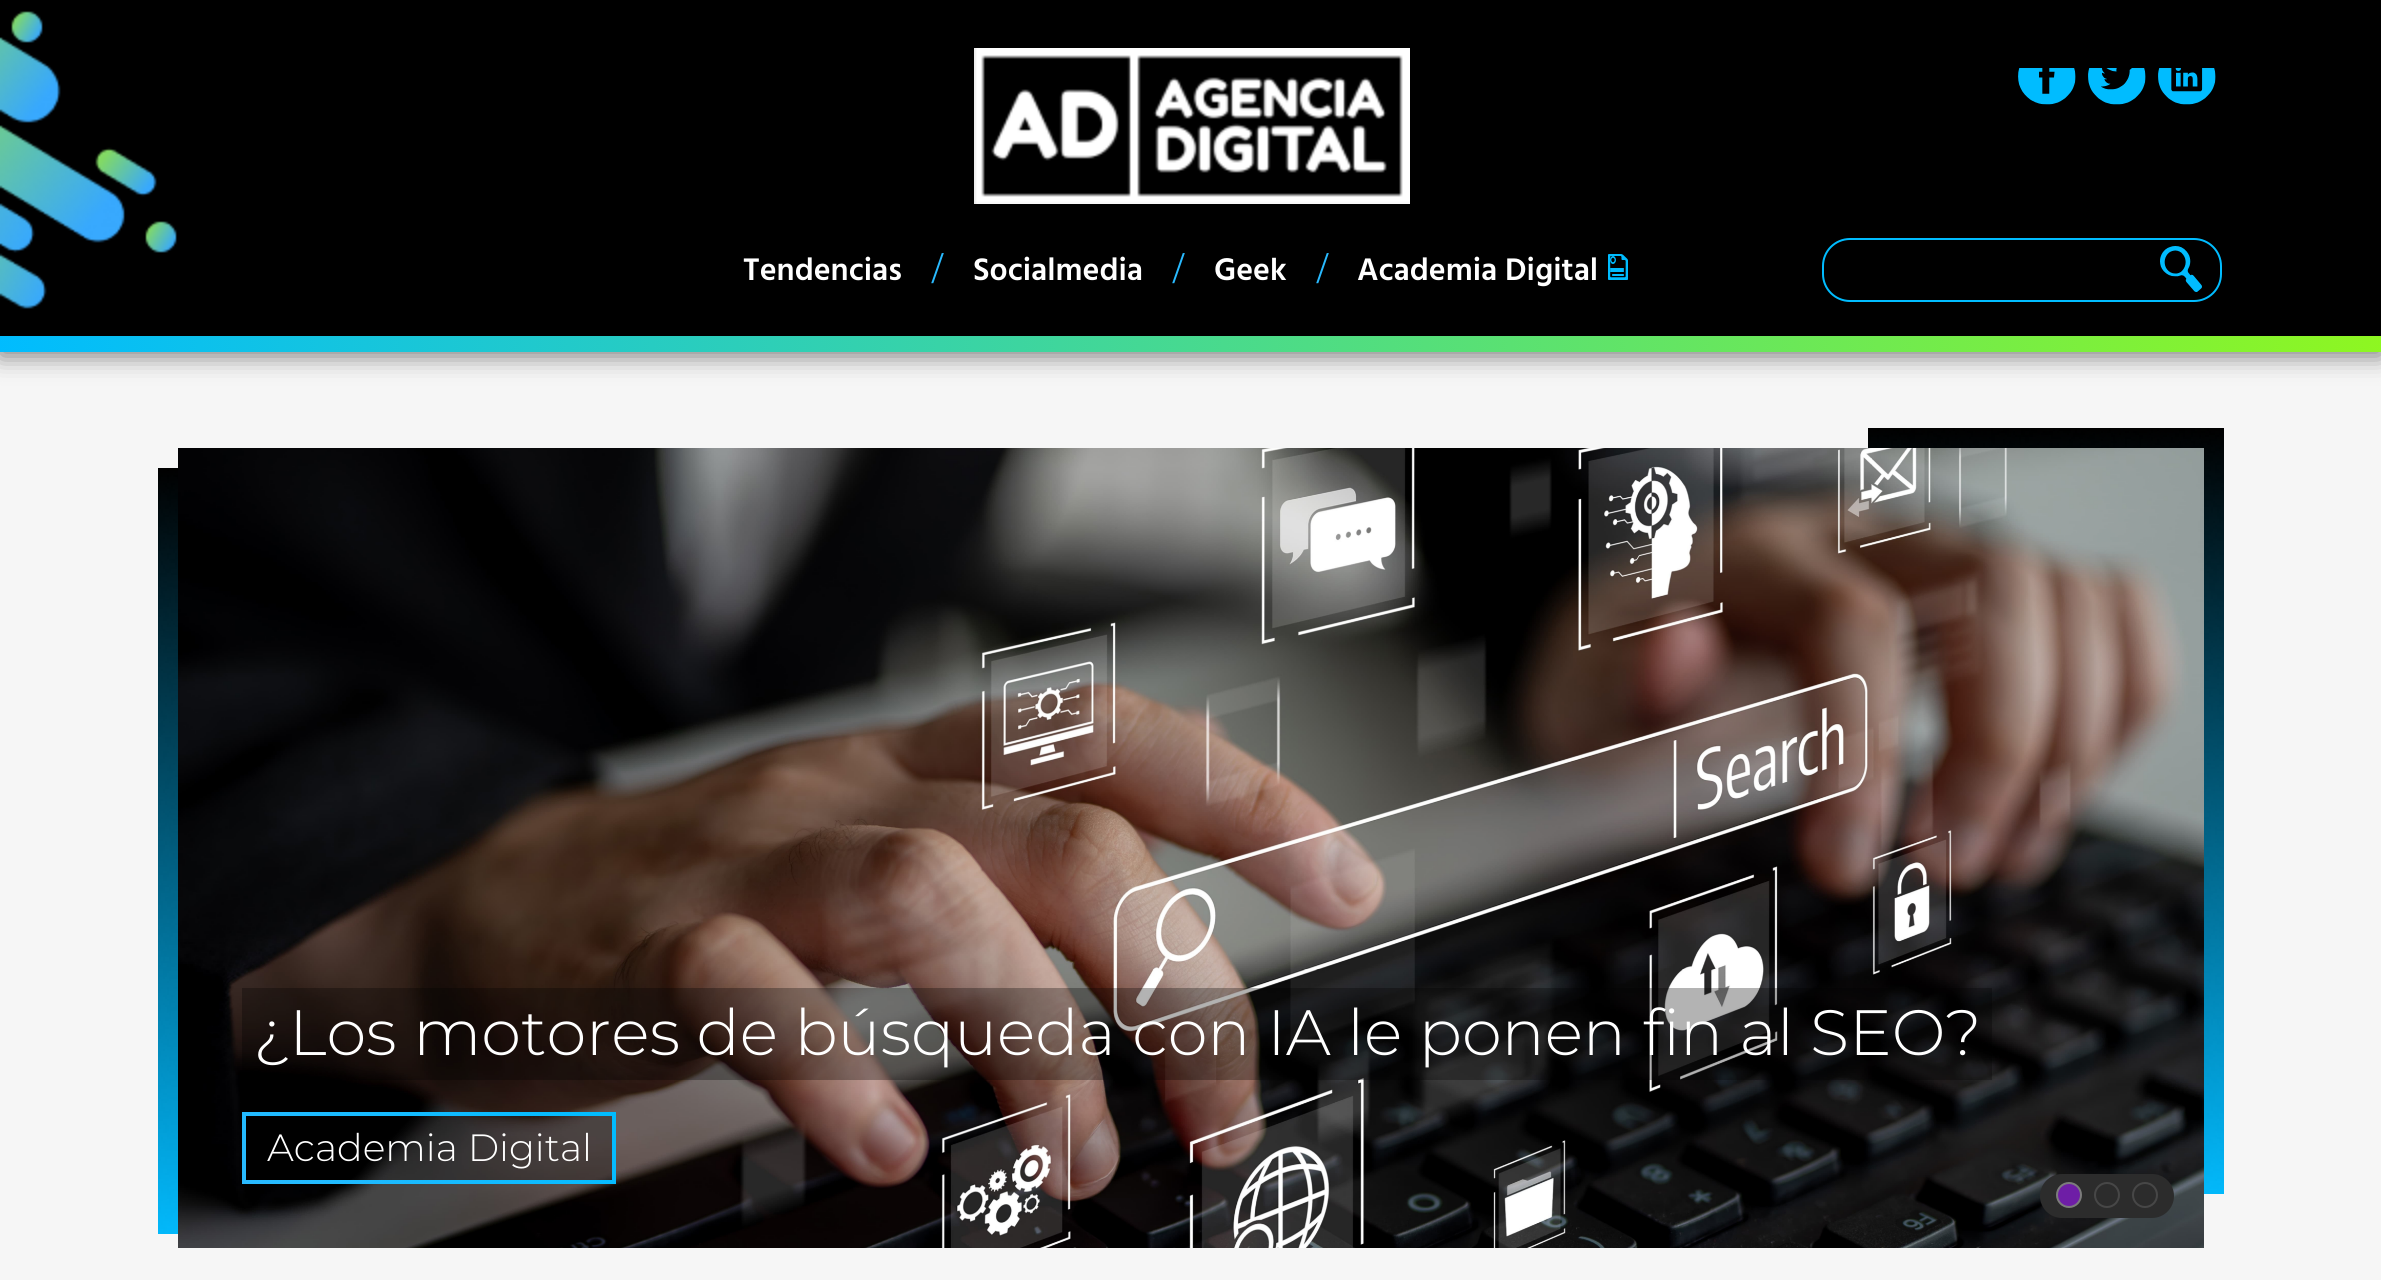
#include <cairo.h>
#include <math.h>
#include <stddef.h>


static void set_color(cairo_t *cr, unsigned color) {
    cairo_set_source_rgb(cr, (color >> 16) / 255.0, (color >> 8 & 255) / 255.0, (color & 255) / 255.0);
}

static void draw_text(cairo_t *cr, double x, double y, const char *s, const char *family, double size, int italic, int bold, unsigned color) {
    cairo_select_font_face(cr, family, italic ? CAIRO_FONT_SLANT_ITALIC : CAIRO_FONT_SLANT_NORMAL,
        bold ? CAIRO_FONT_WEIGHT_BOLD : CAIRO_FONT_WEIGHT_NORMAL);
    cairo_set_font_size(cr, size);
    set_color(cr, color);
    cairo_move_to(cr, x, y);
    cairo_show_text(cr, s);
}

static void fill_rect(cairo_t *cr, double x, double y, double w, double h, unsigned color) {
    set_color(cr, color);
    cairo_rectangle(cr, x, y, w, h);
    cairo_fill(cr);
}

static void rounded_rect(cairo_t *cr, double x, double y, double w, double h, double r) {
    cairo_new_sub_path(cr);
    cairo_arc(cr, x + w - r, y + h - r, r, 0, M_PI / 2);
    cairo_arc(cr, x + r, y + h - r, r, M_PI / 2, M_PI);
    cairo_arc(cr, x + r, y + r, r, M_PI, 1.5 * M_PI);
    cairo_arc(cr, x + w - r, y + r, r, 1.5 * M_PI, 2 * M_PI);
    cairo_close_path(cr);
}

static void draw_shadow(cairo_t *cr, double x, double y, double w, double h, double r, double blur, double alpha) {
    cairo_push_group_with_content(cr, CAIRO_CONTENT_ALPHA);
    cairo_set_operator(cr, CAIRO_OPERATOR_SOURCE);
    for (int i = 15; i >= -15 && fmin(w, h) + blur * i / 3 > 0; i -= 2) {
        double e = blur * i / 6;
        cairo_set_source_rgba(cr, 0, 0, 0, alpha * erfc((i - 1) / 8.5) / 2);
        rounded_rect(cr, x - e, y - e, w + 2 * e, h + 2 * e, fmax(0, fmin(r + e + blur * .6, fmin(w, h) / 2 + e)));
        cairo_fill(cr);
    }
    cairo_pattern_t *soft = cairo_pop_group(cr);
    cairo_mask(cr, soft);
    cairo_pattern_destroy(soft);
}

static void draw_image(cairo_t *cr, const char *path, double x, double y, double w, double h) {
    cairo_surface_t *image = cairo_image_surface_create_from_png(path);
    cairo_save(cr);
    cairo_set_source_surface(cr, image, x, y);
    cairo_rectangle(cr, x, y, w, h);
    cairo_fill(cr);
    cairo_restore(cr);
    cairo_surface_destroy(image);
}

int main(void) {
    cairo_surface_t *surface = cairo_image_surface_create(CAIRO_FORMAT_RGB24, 2381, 1280);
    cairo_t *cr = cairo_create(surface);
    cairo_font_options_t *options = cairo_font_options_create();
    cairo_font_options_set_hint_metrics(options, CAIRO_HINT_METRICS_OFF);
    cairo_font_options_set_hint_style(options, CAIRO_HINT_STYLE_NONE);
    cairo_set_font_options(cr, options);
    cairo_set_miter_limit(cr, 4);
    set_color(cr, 0xF6F6F6);
    cairo_paint(cr);
    set_color(cr, 0x000000);
    draw_shadow(cr, 0, 4, 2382, 352, 0, 12, 0.5);
    fill_rect(cr, 0, 0, 2381, 336, 0x000000);
    draw_image(cr, "assets/img1.png", 0, 336, 2381, 16);
    draw_image(cr, "assets/img2.png", 0, 11, 177, 298);
    draw_image(cr, "assets/img3.png", 974, 48, 436, 156);
    draw_image(cr, "assets/img4.png", 2018, 68, 58, 37);
    draw_image(cr, "assets/img5.png", 2088, 68, 58, 37);
    draw_image(cr, "assets/img6.png", 2158, 68, 58, 37);
    draw_text(cr, 743, 280, "Tendencias", "Hind Siliguri SemiBold", 32, 0, 0, 0xFFFFFF);
    draw_text(cr, 932, 280, "/", "Montserrat", 32, 0, 0, 0x29BAFF);
    draw_text(cr, 973, 280, "Socialmedia", "Hind Siliguri SemiBold", 32, 0, 0, 0xFFFFFF);
    draw_text(cr, 1173, 280, "/", "Montserrat", 32, 0, 0, 0x29BAFF);
    draw_text(cr, 1214, 280, "Geek", "Hind Siliguri SemiBold", 32, 0, 0, 0xFFFFFF);
    draw_text(cr, 1317, 280, "/", "Montserrat", 32, 0, 0, 0x29BAFF);
    draw_text(cr, 1357, 280, "Academia Digital", "Hind Siliguri SemiBold", 32, 0, 0, 0xFFFFFF);
    draw_image(cr, "assets/img7.png", 1608, 254, 20, 26);
    rounded_rect(cr, 1823, 239, 398, 62, 27);
    set_color(cr, 0x00BCFF);
    cairo_stroke(cr);
    draw_image(cr, "assets/img8.png", 2160, 246, 42, 46);
    draw_image(cr, "assets/img9.png", 158, 468, 20, 766);
    draw_image(cr, "assets/img12.png", 1868, 428, 356, 766);
    draw_image(cr, "assets/img10.png", 178, 448, 2026, 800);
    cairo_set_source_rgba(cr, 0, 0, 0, 0.3);
    cairo_rectangle(cr, 242, 988, 1750, 92);
    cairo_fill(cr);
    draw_text(cr, 253, 1055, "¿Los motores de búsqueda con IA le ponen fin al SEO?", "Montserrat Light", 64, 0, 0, 0xFFFFFF);
    cairo_set_source_rgba(cr, 0, 0, 0, 0.3);
    cairo_rectangle(cr, 354, 1116, 258, 64);
    cairo_fill(cr);
    draw_image(cr, "assets/img11.png", 242, 1112, 374, 72);
    draw_text(cr, 267, 1161, "Academia Digital", "Montserrat Light", 38, 0, 0, 0xFFFFFF);
    set_color(cr, 0x2C2C2C);
    rounded_rect(cr, 2040, 1174, 134, 44, 22);
    cairo_fill(cr);
    set_color(cr, 0x6E1EA6);
    cairo_arc(cr, 2069, 1195, 12, 0, 2 * M_PI);
    cairo_fill_preserve(cr);
    set_color(cr, 0x7C7C7C);
    cairo_stroke(cr);
    cairo_arc(cr, 2107, 1195, 12, 0, 2 * M_PI);
    set_color(cr, 0x474747);
    cairo_stroke(cr);
    cairo_arc(cr, 2145, 1195, 12, 0, 2 * M_PI);
    cairo_stroke(cr);
    cairo_surface_write_to_png(surface, "output.png");
    cairo_font_options_destroy(options);
    cairo_destroy(cr);
    cairo_surface_destroy(surface);
    return 0;
}
